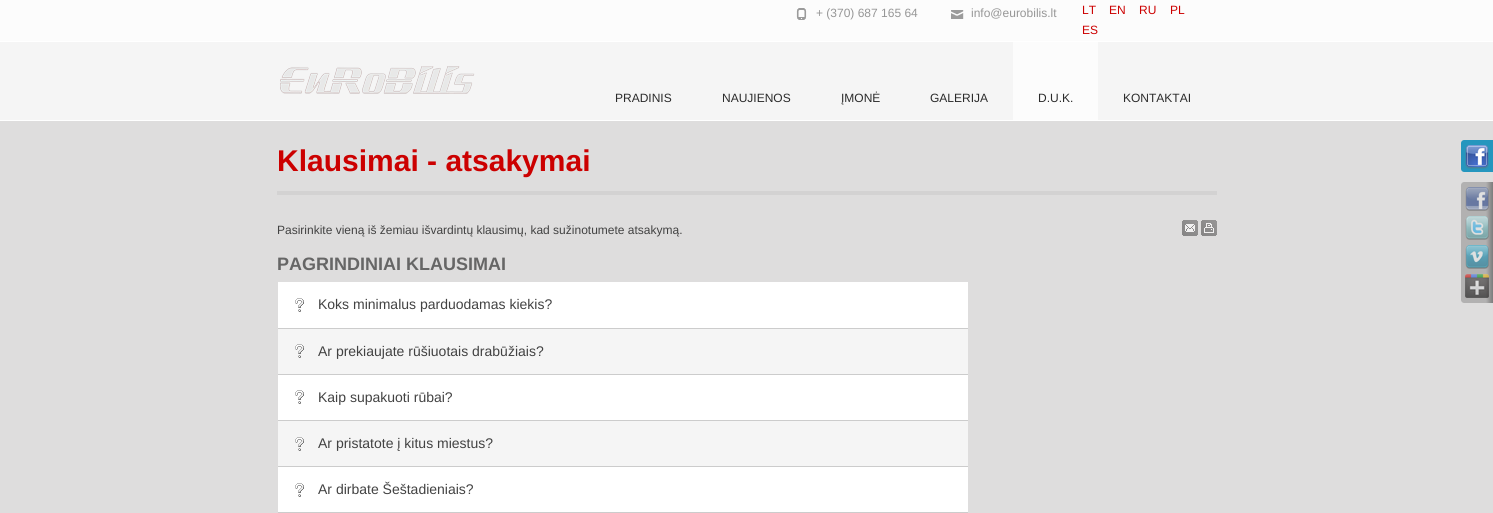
#include <cairo.h>
#include <math.h>
#include <stddef.h>


static void set_color(cairo_t *cr, unsigned color) {
    cairo_set_source_rgb(cr, (color >> 16) / 255.0, (color >> 8 & 255) / 255.0, (color & 255) / 255.0);
}

static void draw_text(cairo_t *cr, double x, double y, const char *s, const char *family, double size, int italic, int bold, unsigned color) {
    cairo_select_font_face(cr, family, italic ? CAIRO_FONT_SLANT_ITALIC : CAIRO_FONT_SLANT_NORMAL,
        bold ? CAIRO_FONT_WEIGHT_BOLD : CAIRO_FONT_WEIGHT_NORMAL);
    cairo_set_font_size(cr, size);
    set_color(cr, color);
    cairo_move_to(cr, x, y);
    cairo_show_text(cr, s);
}

static void fill_rect(cairo_t *cr, double x, double y, double w, double h, unsigned color) {
    set_color(cr, color);
    cairo_rectangle(cr, x, y, w, h);
    cairo_fill(cr);
}

static void draw_image(cairo_t *cr, const char *path, double x, double y, double w, double h) {
    cairo_surface_t *image = cairo_image_surface_create_from_png(path);
    cairo_save(cr);
    cairo_set_source_surface(cr, image, x, y);
    cairo_rectangle(cr, x, y, w, h);
    cairo_fill(cr);
    cairo_restore(cr);
    cairo_surface_destroy(image);
}

int main(void) {
    cairo_surface_t *surface = cairo_image_surface_create(CAIRO_FORMAT_RGB24, 1493, 513);
    cairo_t *cr = cairo_create(surface);
    cairo_font_options_t *options = cairo_font_options_create();
    cairo_font_options_set_hint_metrics(options, CAIRO_HINT_METRICS_OFF);
    cairo_font_options_set_hint_style(options, CAIRO_HINT_STYLE_NONE);
    cairo_set_font_options(cr, options);
    cairo_set_miter_limit(cr, 4);
    set_color(cr, 0xDEDDDD);
    cairo_paint(cr);
    fill_rect(cr, 0, 0, 1493, 41, 0xFCFCFC);
    fill_rect(cr, 0, 41, 1493, 1, 0xFFFFFF);
    draw_image(cr, "assets/img1.png", 796, 8, 11, 12);
    draw_text(cr, 816, 17, "+ (370) 687 165 64", "Liberation Sans", 12, 0, 0, 0x969696);
    draw_image(cr, "assets/img2.png", 951, 10, 13, 9);
    draw_text(cr, 971, 17, "info@eurobilis.lt", "Liberation Sans", 12, 0, 0, 0x969696);
    draw_text(cr, 1082, 14, "LT", "Liberation Sans", 12, 0, 0, 0xCC0000);
    draw_text(cr, 1109, 14, "EN", "Liberation Sans", 12, 0, 0, 0xCC0000);
    draw_text(cr, 1139, 14, "RU", "Liberation Sans", 12, 0, 0, 0xCC0000);
    draw_text(cr, 1170, 14, "PL", "Liberation Sans", 12, 0, 0, 0xCC0000);
    draw_text(cr, 1082, 34, "ES", "Liberation Sans", 12, 0, 0, 0xCC0000);
    fill_rect(cr, 0, 42, 1493, 78, 0xF5F5F5);
    fill_rect(cr, 0, 120, 1493, 1, 0xFFFFFF);
    draw_image(cr, "assets/img3.png", 280, 66, 195, 28);
    draw_text(cr, 615, 102, "PRADINIS", "Liberation Sans", 12, 0, 0, 0x2B2B2B);
    draw_text(cr, 722, 102, "NAUJIENOS", "Liberation Sans", 12, 0, 0, 0x2B2B2B);
    draw_text(cr, 841, 102, "ĮMONĖ", "Liberation Sans", 12, 0, 0, 0x2B2B2B);
    draw_text(cr, 930, 102, "GALERIJA", "Liberation Sans", 12, 0, 0, 0x2B2B2B);
    fill_rect(cr, 1013, 42, 85, 78, 0xFCFCFC);
    draw_text(cr, 1038, 102, "D.U.K.", "Liberation Sans", 12, 0, 0, 0x2B2B2B);
    draw_text(cr, 1123, 102, "KONTAKTAI", "Liberation Sans", 12, 0, 0, 0x2B2B2B);
    fill_rect(cr, 277, 191, 940, 4, 0xD3D2D2);
    draw_text(cr, 277, 171, "Klausimai - atsakymai", "Liberation Sans", 30, 0, 1, 0xCC0000);
    draw_text(cr, 277, 234, "Pasirinkite vieną iš žemiau išvardintų klausimų, kad sužinotumete atsakymą.", "Liberation Sans", 12, 0, 0, 0x424242);
    draw_image(cr, "assets/img4.png", 1182, 220, 16, 16);
    draw_image(cr, "assets/img5.png", 1201, 220, 16, 16);
    draw_text(cr, 277, 270, "PAGRINDINIAI KLAUSIMAI", "Liberation Sans", 18, 0, 1, 0x666666);
    fill_rect(cr, 278, 328, 690, 1, 0xCCCCCC);
    fill_rect(cr, 278, 282, 690, 46, 0xFFFFFF);
    draw_image(cr, "assets/img6.png", 295, 298, 9, 14);
    draw_text(cr, 318, 309, "Koks minimalus parduodamas kiekis?", "Liberation Sans", 14, 0, 0, 0x424242);
    fill_rect(cr, 278, 374, 690, 1, 0xCCCCCC);
    fill_rect(cr, 278, 329, 690, 45, 0xF5F5F5);
    draw_image(cr, "assets/img7.png", 295, 344, 9, 14);
    draw_text(cr, 318, 356, "Ar prekiaujate rūšiuotais drabūžiais?", "Liberation Sans", 14, 0, 0, 0x424242);
    fill_rect(cr, 278, 420, 690, 1, 0xCCCCCC);
    fill_rect(cr, 278, 375, 690, 45, 0xFFFFFF);
    draw_image(cr, "assets/img6.png", 295, 390, 9, 14);
    draw_text(cr, 318, 402, "Kaip supakuoti rūbai?", "Liberation Sans", 14, 0, 0, 0x424242);
    fill_rect(cr, 278, 466, 690, 1, 0xCCCCCC);
    fill_rect(cr, 278, 421, 690, 45, 0xF5F5F5);
    draw_image(cr, "assets/img7.png", 295, 437, 9, 14);
    draw_text(cr, 318, 448, "Ar pristatote į kitus miestus?", "Liberation Sans", 14, 0, 0, 0x424242);
    fill_rect(cr, 278, 512, 690, 1, 0xCCCCCC);
    fill_rect(cr, 278, 467, 690, 45, 0xFFFFFF);
    draw_image(cr, "assets/img6.png", 295, 483, 9, 14);
    draw_text(cr, 318, 494, "Ar dirbate Šeštadieniais?", "Liberation Sans", 14, 0, 0, 0x424242);
    set_color(cr, 0x2596BE);
    cairo_new_path(cr);
    cairo_move_to(cr, 1464, 140);
    cairo_line_to(cr, 1493, 140);
    cairo_line_to(cr, 1493, 172);
    cairo_line_to(cr, 1464, 172);
    cairo_curve_to(cr, 1462.5, 172, 1461, 170.5, 1461, 169);
    cairo_line_to(cr, 1461, 143);
    cairo_curve_to(cr, 1461, 141.5, 1462.5, 140, 1464, 140);
    cairo_close_path(cr);
    cairo_fill(cr);
    draw_image(cr, "assets/img8.png", 1465, 145, 24, 24);
    set_color(cr, 0xB2B1B1);
    cairo_new_path(cr);
    cairo_move_to(cr, 1464, 182);
    cairo_line_to(cr, 1493, 182);
    cairo_line_to(cr, 1493, 303);
    cairo_line_to(cr, 1464, 303);
    cairo_curve_to(cr, 1462.5, 303, 1461, 301.5, 1461, 300);
    cairo_line_to(cr, 1461, 185);
    cairo_curve_to(cr, 1461, 183.5, 1462.5, 182, 1464, 182);
    cairo_close_path(cr);
    cairo_fill(cr);
    draw_image(cr, "assets/img9.png", 1486, 182, 7, 121);
    draw_image(cr, "assets/img10.png", 1465, 187, 24, 24);
    draw_image(cr, "assets/img11.png", 1465, 216, 24, 24);
    draw_image(cr, "assets/img12.png", 1465, 245, 24, 24);
    draw_image(cr, "assets/img13.png", 1465, 274, 24, 24);
    cairo_surface_write_to_png(surface, "output.png");
    cairo_font_options_destroy(options);
    cairo_destroy(cr);
    cairo_surface_destroy(surface);
    return 0;
}
